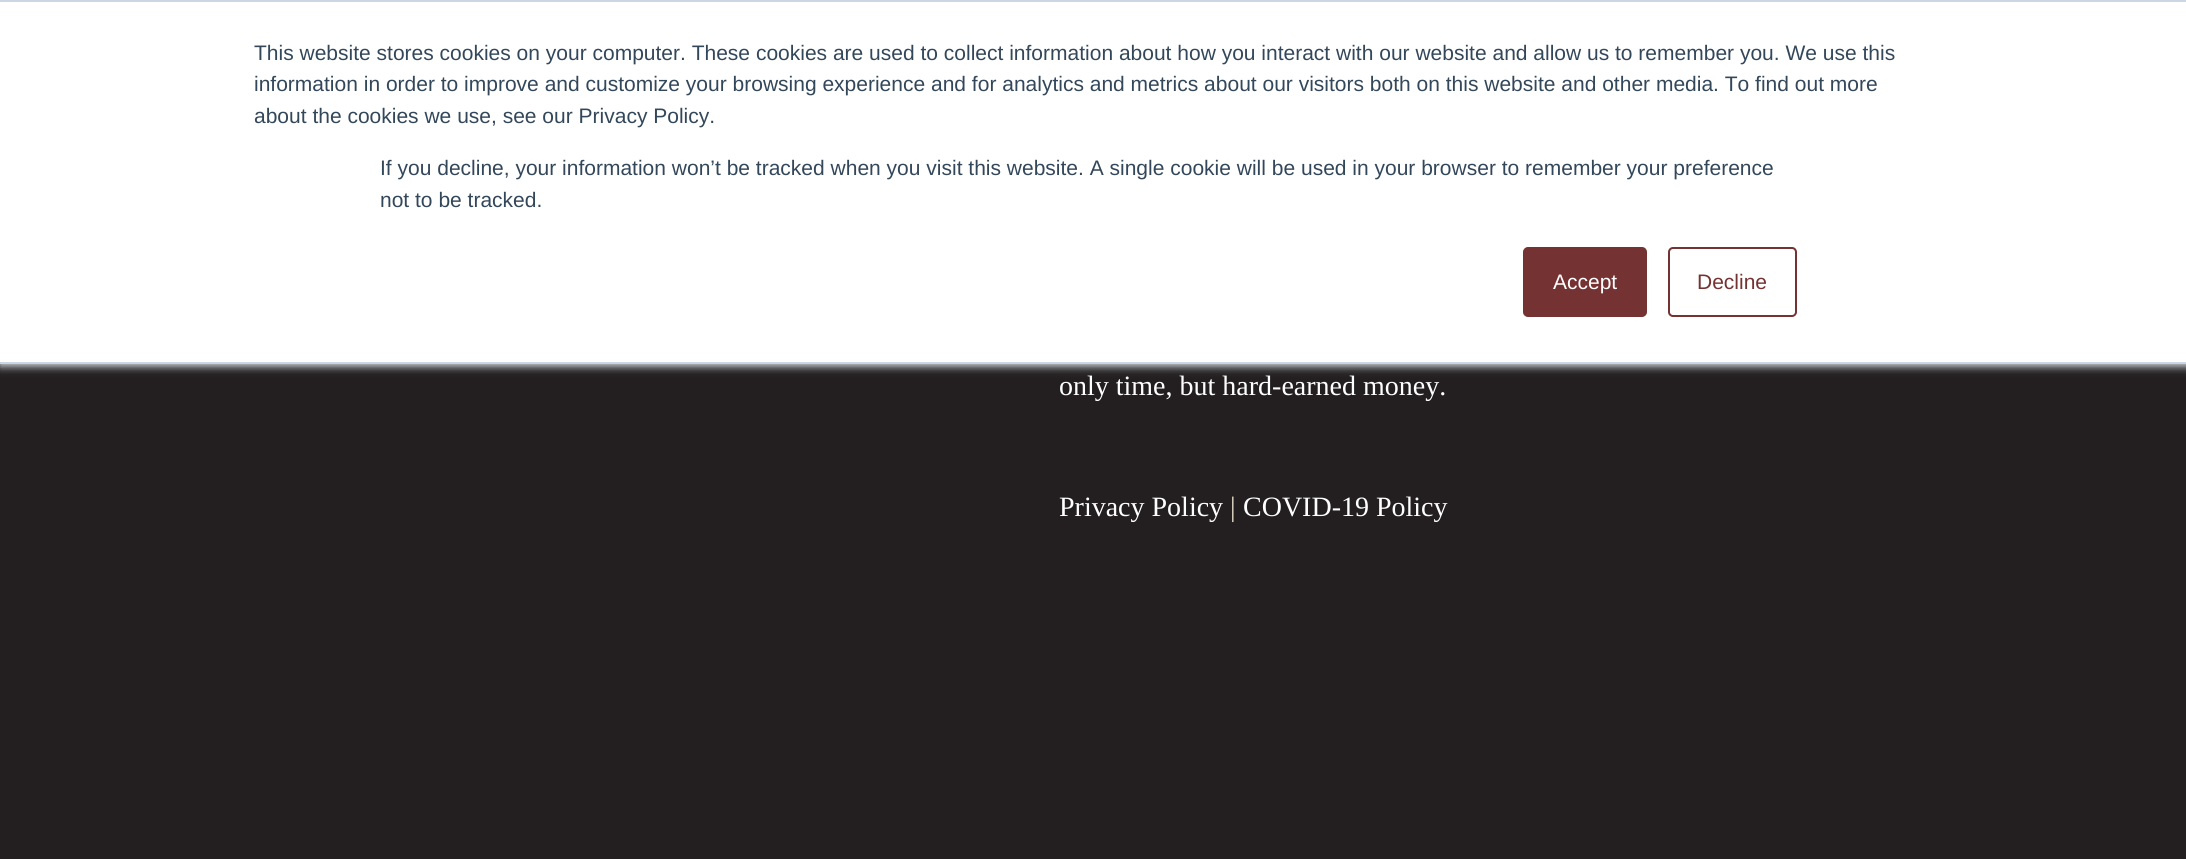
#include <cairo.h>
#include <math.h>
#include <stddef.h>


static void set_color(cairo_t *cr, unsigned color) {
    cairo_set_source_rgb(cr, (color >> 16) / 255.0, (color >> 8 & 255) / 255.0, (color & 255) / 255.0);
}

static void draw_text(cairo_t *cr, double x, double y, const char *s, const char *family, double size, int italic, int bold, unsigned color) {
    cairo_select_font_face(cr, family, italic ? CAIRO_FONT_SLANT_ITALIC : CAIRO_FONT_SLANT_NORMAL,
        bold ? CAIRO_FONT_WEIGHT_BOLD : CAIRO_FONT_WEIGHT_NORMAL);
    cairo_set_font_size(cr, size);
    set_color(cr, color);
    cairo_move_to(cr, x, y);
    cairo_show_text(cr, s);
}

static void fill_rect(cairo_t *cr, double x, double y, double w, double h, unsigned color) {
    set_color(cr, color);
    cairo_rectangle(cr, x, y, w, h);
    cairo_fill(cr);
}

static void rounded_rect(cairo_t *cr, double x, double y, double w, double h, double r) {
    cairo_new_sub_path(cr);
    cairo_arc(cr, x + w - r, y + h - r, r, 0, M_PI / 2);
    cairo_arc(cr, x + r, y + h - r, r, M_PI / 2, M_PI);
    cairo_arc(cr, x + r, y + r, r, M_PI, 1.5 * M_PI);
    cairo_arc(cr, x + w - r, y + r, r, 1.5 * M_PI, 2 * M_PI);
    cairo_close_path(cr);
}

static void draw_shadow(cairo_t *cr, double x, double y, double w, double h, double r, double blur, double alpha) {
    cairo_push_group_with_content(cr, CAIRO_CONTENT_ALPHA);
    cairo_set_operator(cr, CAIRO_OPERATOR_SOURCE);
    for (int i = 15; i >= -15 && fmin(w, h) + blur * i / 3 > 0; i -= 2) {
        double e = blur * i / 6;
        cairo_set_source_rgba(cr, 0, 0, 0, alpha * erfc((i - 1) / 8.5) / 2);
        rounded_rect(cr, x - e, y - e, w + 2 * e, h + 2 * e, fmax(0, fmin(r + e + blur * .6, fmin(w, h) / 2 + e)));
        cairo_fill(cr);
    }
    cairo_pattern_t *soft = cairo_pop_group(cr);
    cairo_mask(cr, soft);
    cairo_pattern_destroy(soft);
}

int main(void) {
    cairo_surface_t *surface = cairo_image_surface_create(CAIRO_FORMAT_RGB24, 2186, 859);
    cairo_t *cr = cairo_create(surface);
    cairo_font_options_t *options = cairo_font_options_create();
    cairo_font_options_set_hint_metrics(options, CAIRO_HINT_METRICS_OFF);
    cairo_font_options_set_hint_style(options, CAIRO_HINT_STYLE_NONE);
    cairo_set_font_options(cr, options);
    cairo_set_miter_limit(cr, 4);
    set_color(cr, 0x231F20);
    cairo_paint(cr);
    set_color(cr, 0xEAF0F6);
    draw_shadow(cr, 0, 2, 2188, 364, 0, 4.5, 1);
    fill_rect(cr, 0, 2, 2186, 360, 0xFFFFFF);
    fill_rect(cr, 0, 0, 2186, 2, 0xCBD6E2);
    fill_rect(cr, 0, 362, 2186, 2, 0xCBD6E2);
    draw_text(cr, 254, 60, "This website stores cookies on your computer. These cookies are used to collect information about how you interact with our website and allow us to remember you. We use this", "Liberation Sans", 21, 0, 0, 0x33475B);
    draw_text(cr, 254, 91, "information in order to improve and customize your browsing experience and for analytics and metrics about our visitors both on this website and other media. To find out more", "Liberation Sans", 21, 0, 0, 0x33475B);
    draw_text(cr, 254, 123, "about the cookies we use, see our Privacy Policy.", "Liberation Sans", 21, 0, 0, 0x33475B);
    draw_text(cr, 380, 175, "If you decline, your information won’t be tracked when you visit this website. A single cookie will be used in your browser to remember your preference", "Liberation Sans", 21, 0, 0, 0x33475B);
    draw_text(cr, 380, 207, "not to be tracked.", "Liberation Sans", 21, 0, 0, 0x33475B);
    set_color(cr, 0x753233);
    rounded_rect(cr, 1524, 248, 122, 68, 4);
    cairo_fill_preserve(cr);
    cairo_stroke(cr);
    draw_text(cr, 1553, 289, "Accept", "Liberation Sans", 21, 0, 0, 0xFFFFFF);
    rounded_rect(cr, 1669, 248, 127, 68, 4);
    set_color(cr, 0x753233);
    cairo_stroke(cr);
    draw_text(cr, 1697, 289, "Decline", "Liberation Sans", 21, 0, 0, 0x753233);
    draw_text(cr, 1059, 395, "only time, but hard-earned money.", "Liberation Serif", 28, 0, 0, 0xFFFFFF);
    draw_text(cr, 1059, 516, "Privacy Policy", "Liberation Serif", 28, 0, 0, 0xFFFFFF);
    draw_text(cr, 1230, 516, "|", "Liberation Serif", 28, 0, 0, 0xE4DCCA);
    draw_text(cr, 1243, 516, "COVID-19 Policy", "Liberation Serif", 28, 0, 0, 0xFFFFFF);
    cairo_surface_write_to_png(surface, "output.png");
    cairo_font_options_destroy(options);
    cairo_destroy(cr);
    cairo_surface_destroy(surface);
    return 0;
}
